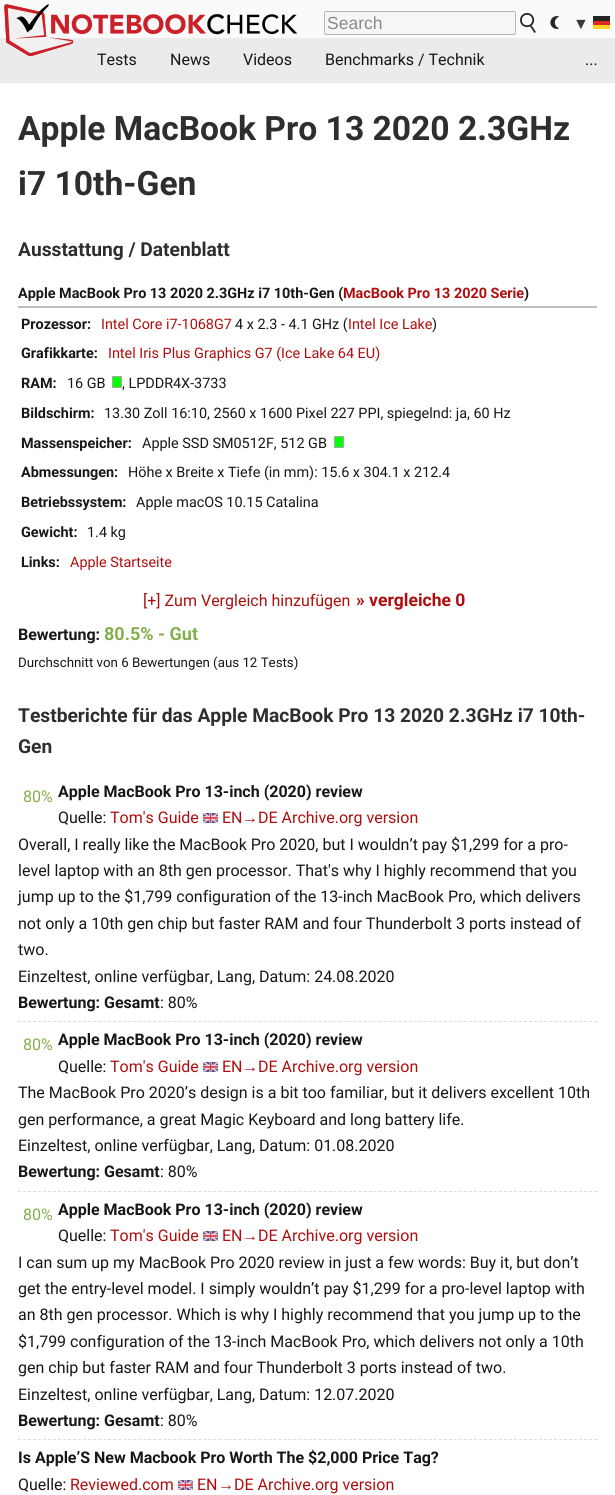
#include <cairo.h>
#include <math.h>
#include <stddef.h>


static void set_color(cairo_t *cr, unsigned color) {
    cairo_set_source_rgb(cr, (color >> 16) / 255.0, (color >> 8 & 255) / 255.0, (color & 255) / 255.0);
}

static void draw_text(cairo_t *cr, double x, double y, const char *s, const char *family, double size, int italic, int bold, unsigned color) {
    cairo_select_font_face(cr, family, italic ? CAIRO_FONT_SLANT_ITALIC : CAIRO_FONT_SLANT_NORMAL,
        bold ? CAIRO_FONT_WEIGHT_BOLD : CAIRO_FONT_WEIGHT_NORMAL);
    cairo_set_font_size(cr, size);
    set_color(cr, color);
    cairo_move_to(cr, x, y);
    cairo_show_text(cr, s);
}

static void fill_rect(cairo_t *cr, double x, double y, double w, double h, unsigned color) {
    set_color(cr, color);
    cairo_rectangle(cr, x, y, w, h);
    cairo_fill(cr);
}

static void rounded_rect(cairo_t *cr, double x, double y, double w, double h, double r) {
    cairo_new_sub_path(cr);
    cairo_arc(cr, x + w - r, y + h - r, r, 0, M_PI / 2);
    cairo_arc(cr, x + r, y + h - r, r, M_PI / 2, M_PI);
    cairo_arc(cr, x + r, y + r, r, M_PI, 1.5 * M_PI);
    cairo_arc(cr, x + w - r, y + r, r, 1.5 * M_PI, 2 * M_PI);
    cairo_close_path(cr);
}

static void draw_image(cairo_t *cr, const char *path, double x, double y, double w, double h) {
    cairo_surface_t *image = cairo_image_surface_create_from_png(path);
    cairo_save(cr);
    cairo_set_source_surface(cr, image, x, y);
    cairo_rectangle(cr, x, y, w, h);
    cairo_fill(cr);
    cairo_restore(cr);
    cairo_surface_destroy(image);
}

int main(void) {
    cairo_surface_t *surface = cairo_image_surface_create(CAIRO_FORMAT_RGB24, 615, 1495);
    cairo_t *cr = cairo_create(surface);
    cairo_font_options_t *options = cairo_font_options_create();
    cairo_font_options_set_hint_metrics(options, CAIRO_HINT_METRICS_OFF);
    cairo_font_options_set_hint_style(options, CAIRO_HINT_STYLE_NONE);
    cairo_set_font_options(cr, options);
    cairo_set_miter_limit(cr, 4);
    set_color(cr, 0xFAFAFA);
    cairo_paint(cr);
    draw_image(cr, "assets/img1.png", 4, 4, 294, 52);
    cairo_set_source_rgba(cr, 0, 0, 0, 0.06);
    cairo_rectangle(cr, 0, 38, 615, 45);
    cairo_fill(cr);
    draw_image(cr, "assets/img2.png", 4, 4, 69, 52);
    set_color(cr, 0xF6F6F6);
    rounded_rect(cr, 324.5, 11.5, 191, 23, 1.5);
    cairo_fill_preserve(cr);
    set_color(cr, 0xB6B6B6);
    cairo_set_line_width(cr, 1);
    cairo_stroke(cr);
    draw_text(cr, 327, 29, "Search", "Liberation Sans", 17.5, 0, 0, 0x898989);
    draw_image(cr, "assets/img3.png", 520, 13, 16, 20);
    draw_image(cr, "assets/img4.png", 550, 16, 9, 13);
    fill_rect(cr, 593, 16, 17, 5, 0x262626);
    draw_text(cr, 573, 29, "▼", "Liberation Sans", 16, 0, 0, 0x393939);
    fill_rect(cr, 593, 21, 17, 4, 0xE12626);
    fill_rect(cr, 593, 25, 17, 4, 0xFED526);
    draw_text(cr, 97, 65, "Tests", "Roboto", 16, 0, 0, 0x171717);
    draw_text(cr, 170, 65, "News", "Roboto", 16, 0, 0, 0x171717);
    draw_text(cr, 243, 65, "Videos", "Roboto", 16, 0, 0, 0x171717);
    draw_text(cr, 325, 65, "Benchmarks / Technik", "Roboto", 16, 0, 0, 0x171717);
    draw_text(cr, 585, 65, "...", "Roboto", 16, 0, 0, 0x171717);
    fill_rect(cr, 0, 83, 615, 1412, 0xFFFFFF);
    draw_text(cr, 18, 140, "Apple MacBook Pro 13 2020 2.3GHz", "Roboto", 33.6, 0, 1, 0x2E2E2E);
    draw_text(cr, 18, 195, "i7 10th-Gen", "Roboto", 33.6, 0, 1, 0x2E2E2E);
    draw_text(cr, 18, 256, "Ausstattung / Datenblatt", "Roboto", 19.2, 0, 1, 0x2E2E2E);
    fill_rect(cr, 18, 306, 579, 2, 0xBFBFBF);
    draw_text(cr, 18, 298, "Apple MacBook Pro 13 2020 2.3GHz i7 10th-Gen (", "Roboto", 14.4, 0, 1, 0x171717);
    draw_text(cr, 343, 298, "MacBook Pro 13 2020 Serie", "Roboto", 14.4, 0, 1, 0xAF0E0E);
    draw_text(cr, 524, 298, ")", "Roboto", 14.4, 0, 1, 0x171717);
    draw_text(cr, 21, 329, "Prozessor:", "Roboto", 14.4, 0, 1, 0x171717);
    draw_text(cr, 101, 329, "Intel Core i7-1068G7", "Roboto", 14.4, 0, 0, 0xAF0E0E);
    draw_text(cr, 235, 329, "4 x 2.3 - 4.1 GHz (", "Roboto", 14.4, 0, 0, 0x171717);
    draw_text(cr, 348, 329, "Intel Ice Lake", "Roboto", 14.4, 0, 0, 0xAF0E0E);
    draw_text(cr, 432, 329, ")", "Roboto", 14.4, 0, 0, 0x171717);
    draw_text(cr, 21, 358, "Grafikkarte:", "Roboto", 14.4, 0, 1, 0x171717);
    draw_text(cr, 108, 358, "Intel Iris Plus Graphics G7 (Ice Lake 64 EU)", "Roboto", 14.4, 0, 0, 0xAF0E0E);
    draw_text(cr, 21, 388, "RAM:", "Roboto", 14.4, 0, 1, 0x171717);
    draw_text(cr, 67, 388, "16 GB", "Roboto", 14.4, 0, 0, 0x171717);
    cairo_rectangle(cr, 112.5, 376.5, 9, 11);
    set_color(cr, 0xAAAAAA);
    cairo_stroke(cr);
    fill_rect(cr, 113, 377, 8, 10, 0x00FF00);
    draw_text(cr, 122, 388, ", LPDDR4X-3733", "Roboto", 14.4, 0, 0, 0x171717);
    draw_text(cr, 21, 418, "Bildschirm:", "Roboto", 14.4, 0, 1, 0x171717);
    draw_text(cr, 104, 418, "13.30 Zoll 16:10, 2560 x 1600 Pixel 227 PPI, spiegelnd: ja, 60 Hz", "Roboto", 14.4, 0, 0, 0x171717);
    draw_text(cr, 21, 448, "Massenspeicher:", "Roboto", 14.4, 0, 1, 0x171717);
    draw_text(cr, 142, 448, "Apple SSD SM0512F, 512 GB", "Roboto", 14.4, 0, 0, 0x171717);
    cairo_rectangle(cr, 334.5, 436.5, 9, 11);
    set_color(cr, 0xAAAAAA);
    cairo_stroke(cr);
    fill_rect(cr, 335, 437, 8, 10, 0x00FF00);
    draw_text(cr, 21, 477, "Abmessungen:", "Roboto", 14.4, 0, 1, 0x171717);
    draw_text(cr, 128, 477, "Höhe x Breite x Tiefe (in mm): 15.6 x 304.1 x 212.4", "Roboto", 14.4, 0, 0, 0x171717);
    draw_text(cr, 21, 507, "Betriebssystem:", "Roboto", 14.4, 0, 1, 0x171717);
    draw_text(cr, 136, 507, "Apple macOS 10.15 Catalina", "Roboto", 14.4, 0, 0, 0x171717);
    draw_text(cr, 21, 537, "Gewicht:", "Roboto", 14.4, 0, 1, 0x171717);
    draw_text(cr, 87, 537, "1.4 kg", "Roboto", 14.4, 0, 0, 0x171717);
    draw_text(cr, 21, 567, "Links:", "Roboto", 14.4, 0, 1, 0x171717);
    draw_text(cr, 70, 567, "Apple Startseite", "Roboto", 14.4, 0, 0, 0xAF0E0E);
    draw_text(cr, 143, 606, "[+] Zum Vergleich hinzufügen", "Roboto", 16, 0, 0, 0xAF0E0E);
    draw_text(cr, 356, 606, "» vergleiche 0", "Roboto", 17.5, 0, 1, 0xAF0E0E);
    draw_text(cr, 18, 640, "Bewertung:", "Roboto", 16, 0, 1, 0x171717);
    draw_text(cr, 104, 640, "80.5% - Gut", "Roboto", 18, 0, 1, 0x83AF4B);
    draw_text(cr, 18, 667, "Durchschnitt von 6 Bewertungen (aus 12 Tests)", "Roboto", 13.3, 0, 0, 0x171717);
    draw_text(cr, 18, 722, "Testberichte für das Apple MacBook Pro 13 2020 2.3GHz i7 10th-", "Roboto", 19.2, 0, 1, 0x2E2E2E);
    draw_text(cr, 18, 753, "Gen", "Roboto", 19.2, 0, 1, 0x2E2E2E);
    cairo_new_path(cr);
    cairo_move_to(cr, 18, 1021.5);
    cairo_line_to(cr, 597, 1021.5);
    set_color(cr, 0xDDDDDD);
    cairo_set_dash(cr, (double[]){3, 2.01}, 2, 0);
    cairo_stroke(cr);
    draw_text(cr, 23, 802, "80%", "Roboto", 16, 0, 0, 0x83AF4B);
    draw_text(cr, 58, 797, "Apple MacBook Pro 13-inch (2020) review", "Roboto", 16, 0, 1, 0x171717);
    draw_text(cr, 58, 823, "Quelle:", "Roboto", 16, 0, 0, 0x171717);
    draw_text(cr, 110, 823, "Tom's Guide", "Roboto", 16, 0, 0, 0xAF0E0E);
    draw_image(cr, "assets/img5.png", 203, 813, 15, 10);
    draw_text(cr, 222, 823, "EN", "Roboto", 16, 0, 0, 0xAF0E0E);
    draw_text(cr, 242, 823, "→", "Liberation Sans", 16, 0, 0, 0xAF0E0E);
    draw_text(cr, 258, 823, "DE Archive.org version", "Roboto", 16, 0, 0, 0xAF0E0E);
    draw_text(cr, 18, 850, "Overall, I really like the MacBook Pro 2020, but I wouldn’t pay $1,299 for a pro-", "Roboto", 16, 0, 0, 0x171717);
    draw_text(cr, 18, 876, "level laptop with an 8th gen processor. That's why I highly recommend that you", "Roboto", 16, 0, 0, 0x171717);
    draw_text(cr, 18, 902, "jump up to the $1,799 configuration of the 13-inch MacBook Pro, which delivers", "Roboto", 16, 0, 0, 0x171717);
    draw_text(cr, 18, 929, "not only a 10th gen chip but faster RAM and four Thunderbolt 3 ports instead of", "Roboto", 16, 0, 0, 0x171717);
    draw_text(cr, 18, 955, "two.", "Roboto", 16, 0, 0, 0x171717);
    draw_text(cr, 18, 982, "Einzeltest, online verfügbar, Lang, Datum: 24.08.2020", "Roboto", 16, 0, 0, 0x171717);
    draw_text(cr, 18, 1008, "Bewertung: Gesamt", "Roboto", 16, 0, 1, 0x171717);
    draw_text(cr, 160, 1008, ": 80%", "Roboto", 16, 0, 0, 0x171717);
    cairo_new_path(cr);
    cairo_move_to(cr, 18, 1191.5);
    cairo_line_to(cr, 597, 1191.5);
    set_color(cr, 0xDDDDDD);
    cairo_stroke(cr);
    draw_text(cr, 23, 1050, "80%", "Roboto", 16, 0, 0, 0x83AF4B);
    draw_text(cr, 58, 1045, "Apple MacBook Pro 13-inch (2020) review", "Roboto", 16, 0, 1, 0x171717);
    draw_text(cr, 58, 1072, "Quelle:", "Roboto", 16, 0, 0, 0x171717);
    draw_text(cr, 110, 1072, "Tom's Guide", "Roboto", 16, 0, 0, 0xAF0E0E);
    draw_image(cr, "assets/img5.png", 203, 1062, 15, 10);
    draw_text(cr, 222, 1072, "EN", "Roboto", 16, 0, 0, 0xAF0E0E);
    draw_text(cr, 242, 1072, "→", "Liberation Sans", 16, 0, 0, 0xAF0E0E);
    draw_text(cr, 258, 1072, "DE Archive.org version", "Roboto", 16, 0, 0, 0xAF0E0E);
    draw_text(cr, 18, 1098, "The MacBook Pro 2020’s design is a bit too familiar, but it delivers excellent 10th", "Roboto", 16, 0, 0, 0x171717);
    draw_text(cr, 18, 1125, "gen performance, a great Magic Keyboard and long battery life.", "Roboto", 16, 0, 0, 0x171717);
    draw_text(cr, 18, 1151, "Einzeltest, online verfügbar, Lang, Datum: 01.08.2020", "Roboto", 16, 0, 0, 0x171717);
    draw_text(cr, 18, 1177, "Bewertung: Gesamt", "Roboto", 16, 0, 1, 0x171717);
    draw_text(cr, 160, 1177, ": 80%", "Roboto", 16, 0, 0, 0x171717);
    cairo_new_path(cr);
    cairo_move_to(cr, 18, 1439.5);
    cairo_line_to(cr, 597, 1439.5);
    set_color(cr, 0xDDDDDD);
    cairo_stroke(cr);
    draw_text(cr, 23, 1220, "80%", "Roboto", 16, 0, 0, 0x83AF4B);
    draw_text(cr, 58, 1215, "Apple MacBook Pro 13-inch (2020) review", "Roboto", 16, 0, 1, 0x171717);
    draw_text(cr, 58, 1241, "Quelle:", "Roboto", 16, 0, 0, 0x171717);
    draw_text(cr, 110, 1241, "Tom's Guide", "Roboto", 16, 0, 0, 0xAF0E0E);
    draw_image(cr, "assets/img5.png", 203, 1231, 15, 10);
    draw_text(cr, 222, 1241, "EN", "Roboto", 16, 0, 0, 0xAF0E0E);
    draw_text(cr, 242, 1241, "→", "Liberation Sans", 16, 0, 0, 0xAF0E0E);
    draw_text(cr, 258, 1241, "DE Archive.org version", "Roboto", 16, 0, 0, 0xAF0E0E);
    draw_text(cr, 18, 1268, "I can sum up my MacBook Pro 2020 review in just a few words: Buy it, but don’t", "Roboto", 16, 0, 0, 0x171717);
    draw_text(cr, 18, 1294, "get the entry-level model. I simply wouldn’t pay $1,299 for a pro-level laptop with", "Roboto", 16, 0, 0, 0x171717);
    draw_text(cr, 18, 1320, "an 8th gen processor. Which is why I highly recommend that you jump up to the", "Roboto", 16, 0, 0, 0x171717);
    draw_text(cr, 18, 1347, "$1,799 configuration of the 13-inch MacBook Pro, which delivers not only a 10th", "Roboto", 16, 0, 0, 0x171717);
    draw_text(cr, 18, 1373, "gen chip but faster RAM and four Thunderbolt 3 ports instead of two.", "Roboto", 16, 0, 0, 0x171717);
    draw_text(cr, 18, 1400, "Einzeltest, online verfügbar, Lang, Datum: 12.07.2020", "Roboto", 16, 0, 0, 0x171717);
    draw_text(cr, 18, 1426, "Bewertung: Gesamt", "Roboto", 16, 0, 1, 0x171717);
    draw_text(cr, 160, 1426, ": 80%", "Roboto", 16, 0, 0, 0x171717);
    draw_text(cr, 18, 1463, "Is Apple’S New Macbook Pro Worth The $2,000 Price Tag?", "Roboto", 16, 0, 1, 0x171717);
    draw_text(cr, 18, 1490, "Quelle:", "Roboto", 16, 0, 0, 0x171717);
    draw_text(cr, 70, 1490, "Reviewed.com", "Roboto", 16, 0, 0, 0xAF0E0E);
    draw_image(cr, "assets/img5.png", 178, 1480, 15, 10);
    draw_text(cr, 197, 1490, "EN", "Roboto", 16, 0, 0, 0xAF0E0E);
    draw_text(cr, 218, 1490, "→", "Liberation Sans", 16, 0, 0, 0xAF0E0E);
    draw_text(cr, 234, 1490, "DE Archive.org version", "Roboto", 16, 0, 0, 0xAF0E0E);
    cairo_surface_write_to_png(surface, "output.png");
    cairo_font_options_destroy(options);
    cairo_destroy(cr);
    cairo_surface_destroy(surface);
    return 0;
}
